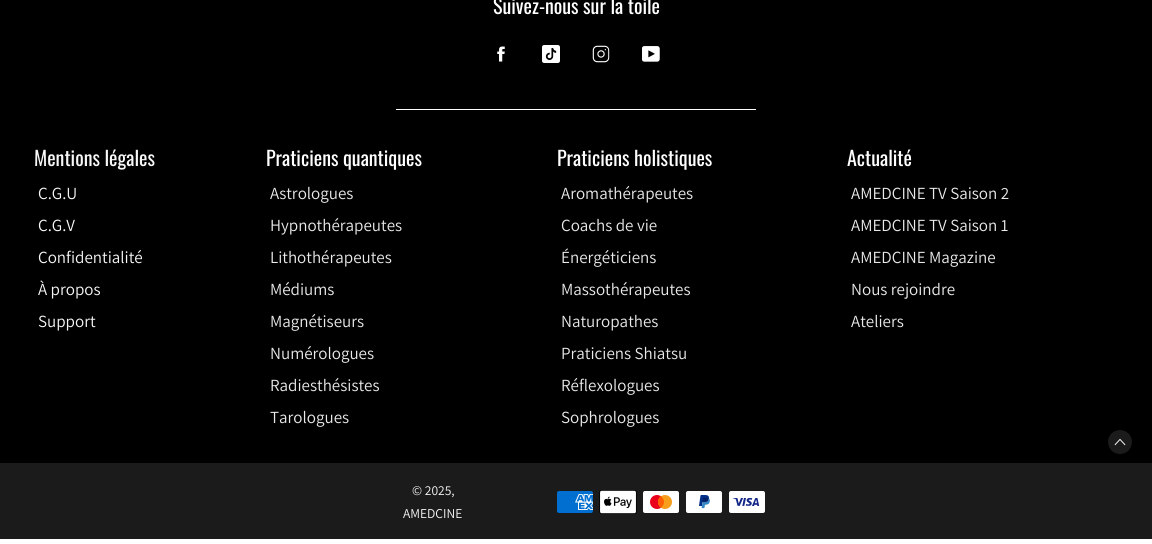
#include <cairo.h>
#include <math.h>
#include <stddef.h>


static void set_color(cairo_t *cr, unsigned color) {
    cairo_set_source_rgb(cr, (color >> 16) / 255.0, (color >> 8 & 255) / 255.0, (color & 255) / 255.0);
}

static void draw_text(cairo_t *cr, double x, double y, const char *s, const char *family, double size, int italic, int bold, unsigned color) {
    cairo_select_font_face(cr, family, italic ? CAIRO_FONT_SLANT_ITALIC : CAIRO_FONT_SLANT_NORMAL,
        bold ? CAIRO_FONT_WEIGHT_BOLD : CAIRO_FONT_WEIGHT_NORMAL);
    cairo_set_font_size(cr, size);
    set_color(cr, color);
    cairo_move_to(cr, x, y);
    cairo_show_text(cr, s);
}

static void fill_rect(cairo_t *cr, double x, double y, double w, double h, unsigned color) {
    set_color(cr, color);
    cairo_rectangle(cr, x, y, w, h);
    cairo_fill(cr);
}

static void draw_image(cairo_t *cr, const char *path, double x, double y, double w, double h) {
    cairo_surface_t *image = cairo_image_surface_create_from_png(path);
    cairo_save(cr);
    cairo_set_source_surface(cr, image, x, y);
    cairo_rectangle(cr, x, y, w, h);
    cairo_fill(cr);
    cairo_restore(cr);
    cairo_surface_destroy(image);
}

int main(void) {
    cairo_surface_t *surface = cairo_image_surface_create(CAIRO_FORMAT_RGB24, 1152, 544);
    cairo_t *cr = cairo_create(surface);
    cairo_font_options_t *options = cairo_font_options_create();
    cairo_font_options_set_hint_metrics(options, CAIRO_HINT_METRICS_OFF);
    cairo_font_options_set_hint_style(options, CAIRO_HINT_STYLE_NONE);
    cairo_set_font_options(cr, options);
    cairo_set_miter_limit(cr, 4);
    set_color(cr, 0xFFFFFF);
    cairo_paint(cr);
    fill_rect(cr, 0, 0, 1152, 463, 0x000000);
    draw_text(cr, 493, 14, "Suivez-nous sur la toile", "Oswald", 20, 0, 0, 0xFFFFFF);
    draw_image(cr, "assets/img1.png", 497, 46, 8, 16);
    draw_image(cr, "assets/img2.png", 542, 45, 18, 18);
    draw_image(cr, "assets/img3.png", 592, 45, 18, 18);
    draw_image(cr, "assets/img4.png", 642, 46, 18, 16);
    fill_rect(cr, 396, 109, 360, 1, 0xFFFFFF);
    draw_text(cr, 34, 166, "Mentions légales", "Oswald", 20, 0, 0, 0xF7F7F7);
    draw_text(cr, 38, 199, "C.G.U", "Assistant", 17, 0, 0, 0xF7F7F7);
    draw_text(cr, 38, 231, "C.G.V", "Assistant", 17, 0, 0, 0xF7F7F7);
    draw_text(cr, 38, 263, "Confidentialité", "Assistant", 17, 0, 0, 0xF7F7F7);
    draw_text(cr, 38, 295, "À propos", "Assistant", 17, 0, 0, 0xF7F7F7);
    draw_text(cr, 38, 327, "Support", "Assistant", 17, 0, 0, 0xF7F7F7);
    draw_text(cr, 266, 166, "Praticiens quantiques", "Oswald", 20, 0, 0, 0xFFFFFF);
    draw_text(cr, 270, 199, "Astrologues", "Assistant", 17, 0, 0, 0xEAEAEA);
    draw_text(cr, 270, 231, "Hypnothérapeutes", "Assistant", 17, 0, 0, 0xEAEAEA);
    draw_text(cr, 270, 263, "Lithothérapeutes", "Assistant", 17, 0, 0, 0xEAEAEA);
    draw_text(cr, 270, 295, "Médiums", "Assistant", 17, 0, 0, 0xEAEAEA);
    draw_text(cr, 270, 327, "Magnétiseurs", "Assistant", 17, 0, 0, 0xEAEAEA);
    draw_text(cr, 270, 359, "Numérologues", "Assistant", 17, 0, 0, 0xEAEAEA);
    draw_text(cr, 270, 391, "Radiesthésistes", "Assistant", 17, 0, 0, 0xEAEAEA);
    draw_text(cr, 270, 423, "Tarologues", "Assistant", 17, 0, 0, 0xEAEAEA);
    draw_text(cr, 557, 166, "Praticiens holistiques", "Oswald", 20, 0, 0, 0xFFFFFF);
    draw_text(cr, 561, 199, "Aromathérapeutes", "Assistant", 17, 0, 0, 0xEAEAEA);
    draw_text(cr, 561, 231, "Coachs de vie", "Assistant", 17, 0, 0, 0xEAEAEA);
    draw_text(cr, 561, 263, "Énergéticiens", "Assistant", 17, 0, 0, 0xEAEAEA);
    draw_text(cr, 561, 295, "Massothérapeutes", "Assistant", 17, 0, 0, 0xEAEAEA);
    draw_text(cr, 561, 327, "Naturopathes", "Assistant", 17, 0, 0, 0xEAEAEA);
    draw_text(cr, 561, 359, "Praticiens Shiatsu", "Assistant", 17, 0, 0, 0xEAEAEA);
    draw_text(cr, 561, 391, "Réflexologues", "Assistant", 17, 0, 0, 0xEAEAEA);
    draw_text(cr, 561, 423, "Sophrologues", "Assistant", 17, 0, 0, 0xEAEAEA);
    draw_text(cr, 847, 166, "Actualité", "Oswald", 20, 0, 0, 0xFFFFFF);
    draw_text(cr, 851, 199, "AMEDCINE TV Saison 2", "Assistant", 17, 0, 0, 0xEAEAEA);
    draw_text(cr, 851, 231, "AMEDCINE TV Saison 1", "Assistant", 17, 0, 0, 0xEAEAEA);
    draw_text(cr, 851, 263, "AMEDCINE Magazine", "Assistant", 17, 0, 0, 0xEAEAEA);
    draw_text(cr, 851, 295, "Nous rejoindre", "Assistant", 17, 0, 0, 0xEAEAEA);
    draw_text(cr, 851, 327, "Ateliers", "Assistant", 17, 0, 0, 0xEAEAEA);
    fill_rect(cr, 0, 463, 1152, 76, 0x1B1B1B);
    draw_text(cr, 412, 495, "© 2025,", "Assistant", 13.5, 0, 0, 0xF7F7F7);
    draw_text(cr, 403, 518, "AMEDCINE", "Assistant", 13.5, 0, 0, 0xF7F7F7);
    draw_image(cr, "assets/img5.png", 557, 491, 36, 22);
    draw_image(cr, "assets/img6.png", 599, 490, 38, 24);
    draw_image(cr, "assets/img7.png", 643, 491, 36, 22);
    draw_image(cr, "assets/img8.png", 686, 491, 36, 22);
    draw_image(cr, "assets/img9.png", 729, 491, 36, 22);
    set_color(cr, 0x1B1B1B);
    cairo_arc(cr, 1120, 442, 12, 0, 2 * M_PI);
    cairo_fill(cr);
    draw_image(cr, "assets/img10.png", 1114, 438, 12, 8);
    cairo_surface_write_to_png(surface, "output.png");
    cairo_font_options_destroy(options);
    cairo_destroy(cr);
    cairo_surface_destroy(surface);
    return 0;
}
